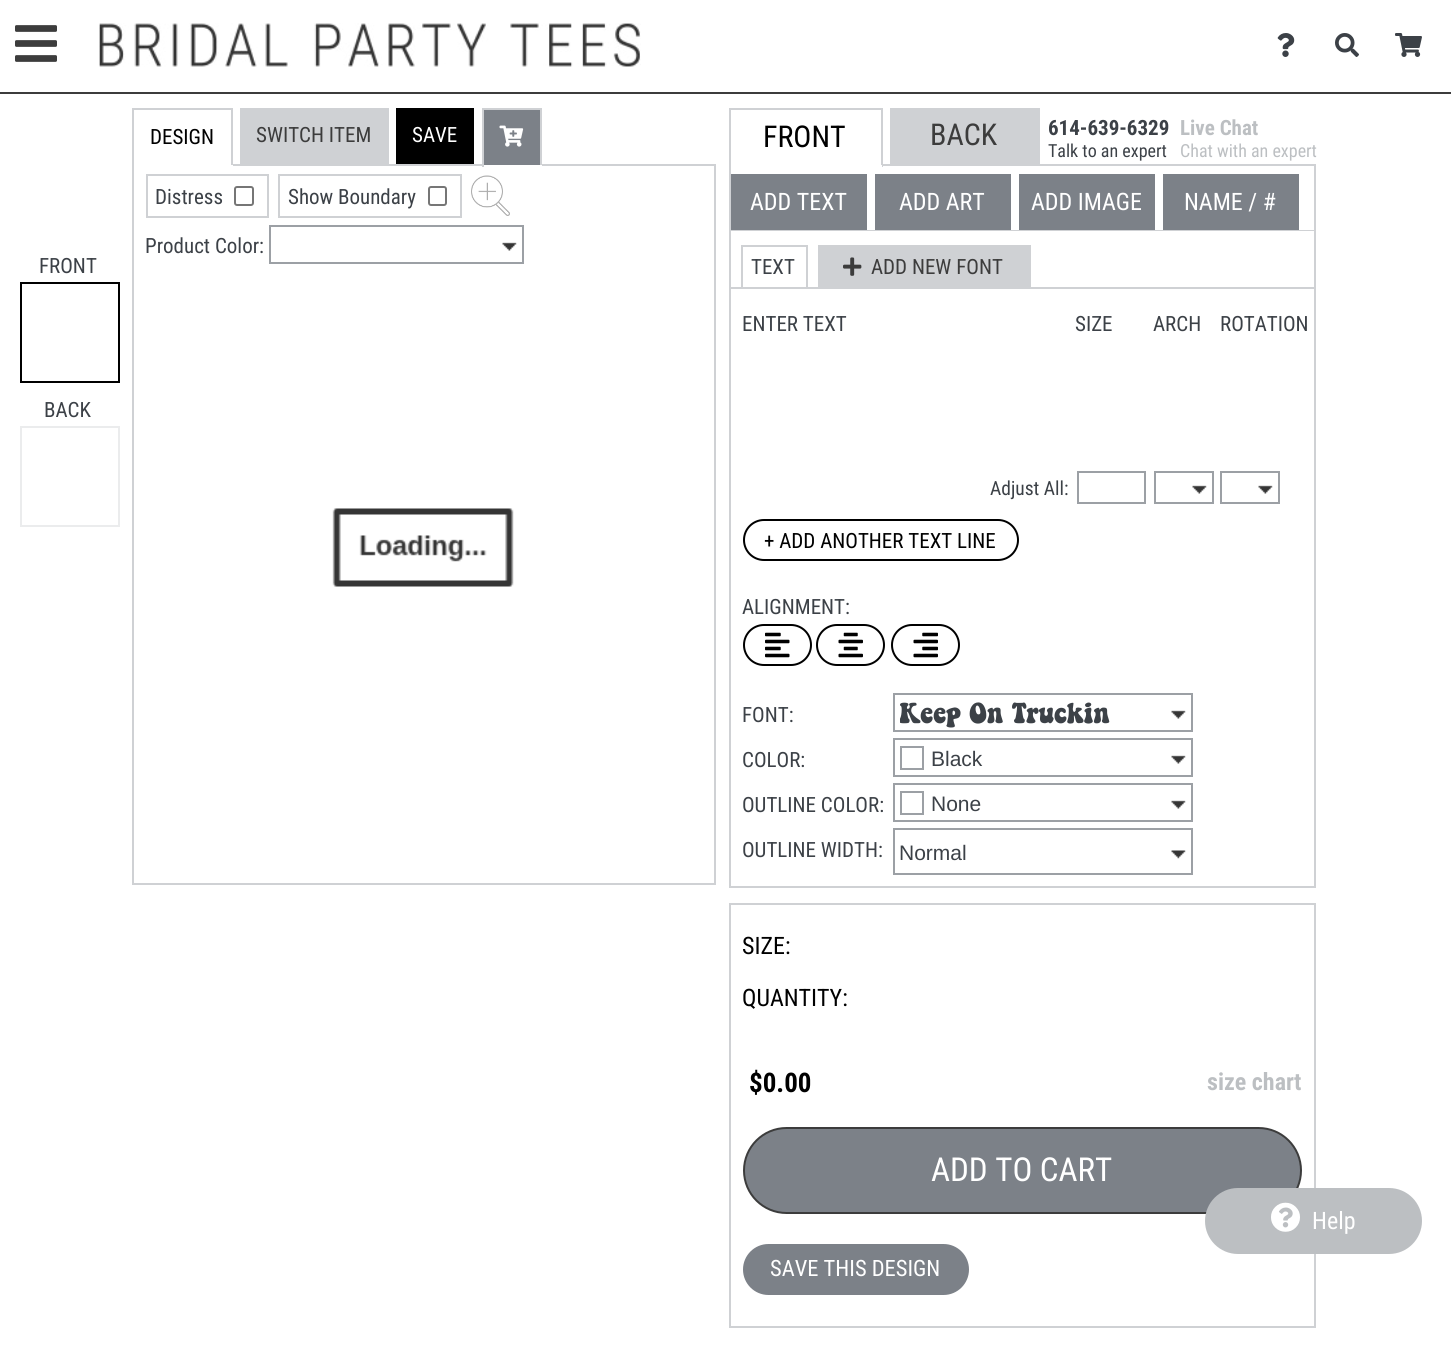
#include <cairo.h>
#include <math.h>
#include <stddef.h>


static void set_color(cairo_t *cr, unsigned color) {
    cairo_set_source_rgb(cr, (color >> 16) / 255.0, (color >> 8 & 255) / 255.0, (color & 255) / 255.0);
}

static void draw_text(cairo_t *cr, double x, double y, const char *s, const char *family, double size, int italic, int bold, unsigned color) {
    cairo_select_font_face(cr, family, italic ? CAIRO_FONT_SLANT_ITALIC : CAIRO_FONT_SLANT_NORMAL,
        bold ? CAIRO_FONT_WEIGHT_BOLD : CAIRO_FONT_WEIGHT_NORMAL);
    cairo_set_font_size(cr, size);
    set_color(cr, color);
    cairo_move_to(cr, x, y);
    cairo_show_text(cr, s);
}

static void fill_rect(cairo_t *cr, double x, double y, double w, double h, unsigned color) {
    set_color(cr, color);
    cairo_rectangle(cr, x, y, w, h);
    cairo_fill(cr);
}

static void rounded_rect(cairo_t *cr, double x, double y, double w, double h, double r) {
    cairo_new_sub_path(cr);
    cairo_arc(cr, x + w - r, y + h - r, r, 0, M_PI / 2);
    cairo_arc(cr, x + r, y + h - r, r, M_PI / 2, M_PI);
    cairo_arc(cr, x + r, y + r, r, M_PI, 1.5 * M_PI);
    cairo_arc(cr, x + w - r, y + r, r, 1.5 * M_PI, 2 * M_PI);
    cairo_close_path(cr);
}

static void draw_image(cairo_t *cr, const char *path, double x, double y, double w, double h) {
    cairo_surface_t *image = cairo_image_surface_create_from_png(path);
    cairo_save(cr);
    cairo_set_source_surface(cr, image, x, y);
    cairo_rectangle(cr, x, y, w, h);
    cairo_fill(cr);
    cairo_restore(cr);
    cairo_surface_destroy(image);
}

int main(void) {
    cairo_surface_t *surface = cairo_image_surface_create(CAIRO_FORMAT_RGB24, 1451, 1366);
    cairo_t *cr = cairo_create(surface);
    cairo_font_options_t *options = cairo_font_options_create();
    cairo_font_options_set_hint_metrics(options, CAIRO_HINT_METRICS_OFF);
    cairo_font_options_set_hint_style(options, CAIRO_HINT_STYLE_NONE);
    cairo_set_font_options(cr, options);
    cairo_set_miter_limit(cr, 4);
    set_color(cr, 0xFFFFFF);
    cairo_paint(cr);
    fill_rect(cr, 0, 92, 1451, 2, 0x3C3C3C);
    draw_image(cr, "assets/img1.png", 15, 25, 42, 37);
    draw_image(cr, "assets/img2.png", 99, 23, 542, 44);
    draw_image(cr, "assets/img3.png", 1277, 33, 18, 24);
    draw_image(cr, "assets/img4.png", 1335, 33, 24, 24);
    draw_image(cr, "assets/img5.png", 1395, 33, 27, 24);
    cairo_rectangle(cr, 133, 165, 582, 719);
    set_color(cr, 0xCFD1D4);
    cairo_stroke(cr);
    fill_rect(cr, 134, 164, 97, 1, 0xFFFFFF);
    fill_rect(cr, 132, 108, 101, 2, 0xCFD1D4);
    fill_rect(cr, 231, 108, 2, 59, 0xCFD1D4);
    fill_rect(cr, 132, 165, 101, 2, 0xFFFFFF);
    fill_rect(cr, 132, 108, 2, 59, 0xCFD1D4);
    draw_text(cr, 150, 144, "DESIGN", "Roboto Condensed", 21, 0, 0, 0x000000);
    fill_rect(cr, 240, 108, 149, 56, 0xCFD1D4);
    draw_text(cr, 256, 142, "SWITCH ITEM", "Roboto Condensed", 21, 0, 0, 0x3C3C3C);
    fill_rect(cr, 396, 108, 78, 56, 0x000000);
    draw_text(cr, 412, 142, "SAVE", "Roboto Condensed", 21, 0, 0, 0xFFFFFF);
    fill_rect(cr, 484, 110, 56, 55, 0x7C8188);
    fill_rect(cr, 482, 108, 60, 2, 0xCFD1D4);
    fill_rect(cr, 540, 108, 2, 59, 0xCFD1D4);
    fill_rect(cr, 482, 165, 60, 2, 0xFFFFFF);
    fill_rect(cr, 482, 108, 2, 59, 0xCFD1D4);
    draw_image(cr, "assets/img6.png", 499, 125, 25, 22);
    cairo_rectangle(cr, 147, 175, 121, 42);
    cairo_stroke(cr);
    draw_text(cr, 155, 204, "Distress", "Roboto Condensed", 21, 0, 0, 0x3C4147);
    rounded_rect(cr, 235, 187, 18, 18, 2);
    set_color(cr, 0x767676);
    cairo_stroke(cr);
    cairo_rectangle(cr, 279, 175, 182, 42);
    set_color(cr, 0xCFD1D4);
    cairo_stroke(cr);
    draw_text(cr, 288, 204, "Show Boundary", "Roboto Condensed", 21, 0, 0, 0x3C4147);
    rounded_rect(cr, 429, 187, 17, 18, 2);
    set_color(cr, 0x767676);
    cairo_stroke(cr);
    draw_image(cr, "assets/img7.png", 471, 175, 39, 41);
    draw_text(cr, 145, 253, "Product Color:", "Roboto Condensed", 21, 0, 0, 0x3C4147);
    draw_image(cr, "assets/img8.png", 502, 242, 15, 9);
    cairo_rectangle(cr, 270, 226, 253, 37);
    set_color(cr, 0x9CA0A5);
    cairo_stroke(cr);
    draw_image(cr, "assets/img9.png", 332, 508, 182, 79);
    fill_rect(cr, 729, 108, 153, 2, 0xCFD1D4);
    fill_rect(cr, 881, 108, 2, 59, 0xCFD1D4);
    fill_rect(cr, 729, 164, 2, 66, 0xCFD1D4);
    fill_rect(cr, 729, 165, 153, 2, 0xFFFFFF);
    fill_rect(cr, 729, 108, 2, 59, 0xCFD1D4);
    draw_text(cr, 763, 147, "FRONT", "Roboto Condensed", 30, 0, 0, 0x000000);
    fill_rect(cr, 890, 108, 150, 56, 0xCFD1D4);
    draw_text(cr, 930, 145, "BACK", "Roboto Condensed", 30, 0, 0, 0x3C3C3C);
    draw_text(cr, 1048, 135, "614-639-6329", "Roboto Condensed", 21, 0, 1, 0x3C4147);
    draw_text(cr, 1048, 157, "Talk to an expert", "Roboto Condensed", 18, 0, 0, 0x3C4147);
    draw_text(cr, 1180, 135, "Live Chat", "Roboto Condensed", 21, 0, 1, 0xBCBFC2);
    draw_text(cr, 1180, 157, "Chat with an expert", "Roboto Condensed", 18, 0, 0, 0xBCBFC2);
    fill_rect(cr, 883, 164, 433, 2, 0xCFD1D4);
    fill_rect(cr, 1314, 164, 2, 66, 0xCFD1D4);
    fill_rect(cr, 731, 174, 136, 56, 0x7C8188);
    draw_text(cr, 750, 210, "ADD TEXT", "Roboto Condensed", 24, 0, 0, 0xFFFFFF);
    fill_rect(cr, 875, 174, 136, 56, 0x7C8188);
    draw_text(cr, 899, 210, "ADD ART", "Roboto Condensed", 24, 0, 0, 0xFFFFFF);
    fill_rect(cr, 1019, 174, 136, 56, 0x7C8188);
    draw_text(cr, 1031, 210, "ADD IMAGE", "Roboto Condensed", 24, 0, 0, 0xFFFFFF);
    fill_rect(cr, 1163, 174, 136, 56, 0x7C8188);
    draw_text(cr, 1184, 210, "NAME / #", "Roboto Condensed", 24, 0, 0, 0xFFFFFF);
    cairo_rectangle(cr, 730, 231, 585, 656);
    set_color(cr, 0xCFD1D4);
    cairo_stroke(cr);
    fill_rect(cr, 731, 231, 583, 1, 0xFFFFFF);
    fill_rect(cr, 731, 287, 583, 2, 0xCFD1D4);
    fill_rect(cr, 741, 245, 66, 2, 0xCFD1D4);
    fill_rect(cr, 806, 245, 2, 43, 0xCFD1D4);
    fill_rect(cr, 741, 245, 2, 43, 0xCFD1D4);
    draw_text(cr, 751, 274, "TEXT", "Roboto Condensed", 21, 0, 0, 0x3C4147);
    fill_rect(cr, 818, 245, 213, 42, 0xCFD1D4);
    draw_image(cr, "assets/img10.png", 843, 257, 19, 19);
    draw_text(cr, 871, 274, "ADD NEW FONT", "Roboto Condensed", 21, 0, 0, 0x3C3C3C);
    draw_text(cr, 742, 331, "ENTER TEXT", "Roboto Condensed", 21, 0, 0, 0x3C4147);
    draw_text(cr, 1075, 331, "SIZE", "Roboto Condensed", 21, 0, 0, 0x3C4147);
    draw_text(cr, 1153, 331, "ARCH", "Roboto Condensed", 21, 0, 0, 0x3C4147);
    draw_text(cr, 1220, 331, "ROTATION", "Roboto Condensed", 21, 0, 0, 0x3C4147);
    draw_text(cr, 990, 495, "Adjust All:", "Roboto Condensed", 19.5, 0, 0, 0x3C4147);
    cairo_rectangle(cr, 1078, 472, 67, 31);
    set_color(cr, 0x9CA0A5);
    cairo_stroke(cr);
    draw_image(cr, "assets/img11.png", 1192, 485, 15, 9);
    cairo_rectangle(cr, 1155, 472, 58, 31);
    cairo_stroke(cr);
    draw_image(cr, "assets/img11.png", 1258, 485, 15, 9);
    cairo_rectangle(cr, 1221, 472, 58, 31);
    cairo_stroke(cr);
    rounded_rect(cr, 744, 520, 274, 40, 20);
    set_color(cr, 0x000000);
    cairo_stroke(cr);
    draw_text(cr, 764, 548, "+ ADD ANOTHER TEXT LINE", "Roboto Condensed", 21, 0, 0, 0x000000);
    draw_text(cr, 742, 614, "ALIGNMENT:", "Roboto Condensed", 21, 0, 0, 0x3C4147);
    rounded_rect(cr, 744, 625, 67, 40, 20);
    set_color(cr, 0x000000);
    cairo_stroke(cr);
    draw_image(cr, "assets/img12.png", 765, 632, 25, 26);
    rounded_rect(cr, 817, 625, 67, 40, 20);
    cairo_stroke(cr);
    draw_image(cr, "assets/img13.png", 838, 632, 25, 26);
    rounded_rect(cr, 892, 625, 67, 40, 20);
    cairo_stroke(cr);
    draw_image(cr, "assets/img14.png", 913, 632, 25, 26);
    draw_text(cr, 742, 722, "FONT:", "Roboto Condensed", 21, 0, 0, 0x3C4147);
    draw_image(cr, "assets/img11.png", 1171, 710, 15, 9);
    cairo_rectangle(cr, 894, 694, 298, 37);
    set_color(cr, 0x9CA0A5);
    cairo_stroke(cr);
    cairo_save(cr);
    cairo_rectangle(cr, 900, 696, 291, 33);
    cairo_clip(cr);
    draw_text(cr, 899, 723, "Keep On Truckin", "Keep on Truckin", 27, 0, 0, 0x3C4147);
    cairo_restore(cr);
    draw_text(cr, 742, 767, "COLOR:", "Roboto Condensed", 21, 0, 0, 0x3C4147);
    draw_image(cr, "assets/img11.png", 1171, 755, 15, 9);
    cairo_rectangle(cr, 894, 739, 298, 37);
    set_color(cr, 0x9CA0A5);
    cairo_stroke(cr);
    cairo_rectangle(cr, 901, 747, 22, 22);
    cairo_stroke(cr);
    draw_text(cr, 931, 766, "Black", "Liberation Sans", 21, 0, 0, 0x3C4147);
    draw_text(cr, 742, 812, "OUTLINE COLOR:", "Roboto Condensed", 21, 0, 0, 0x3C4147);
    draw_image(cr, "assets/img11.png", 1171, 800, 15, 9);
    cairo_rectangle(cr, 894, 784, 298, 37);
    set_color(cr, 0x9CA0A5);
    cairo_stroke(cr);
    cairo_rectangle(cr, 901, 792, 22, 22);
    cairo_stroke(cr);
    draw_text(cr, 931, 811, "None", "Liberation Sans", 21, 0, 0, 0x3C4147);
    draw_text(cr, 742, 857, "OUTLINE WIDTH:", "Roboto Condensed", 21, 0, 0, 0x3C4147);
    draw_image(cr, "assets/img15.png", 1171, 850, 15, 9);
    cairo_rectangle(cr, 894, 829, 298, 45);
    set_color(cr, 0x9CA0A5);
    cairo_stroke(cr);
    draw_text(cr, 899, 860, "Normal", "Liberation Sans", 21, 0, 0, 0x3C4147);
    cairo_rectangle(cr, 730, 904, 585, 423);
    set_color(cr, 0xCFD1D4);
    cairo_stroke(cr);
    draw_text(cr, 742, 954, "SIZE:", "Roboto Condensed", 24, 0, 0, 0x000000);
    draw_text(cr, 742, 1006, "QUANTITY:", "Roboto Condensed", 24, 0, 0, 0x000000);
    draw_text(cr, 749, 1092, "$0.00", "Roboto Condensed", 27, 0, 1, 0x000000);
    draw_text(cr, 1207, 1090, "size chart", "Roboto Condensed", 24, 0, 1, 0xBCBFC2);
    set_color(cr, 0x7C8188);
    rounded_rect(cr, 744, 1128, 557, 85, 42.5);
    cairo_fill_preserve(cr);
    set_color(cr, 0x3C3C3C);
    cairo_stroke(cr);
    draw_text(cr, 931, 1181, "ADD TO CART", "Roboto Condensed", 33, 0, 0, 0xFFFFFF);
    set_color(cr, 0x7C8188);
    rounded_rect(cr, 744, 1245, 224, 49, 24.5);
    cairo_fill_preserve(cr);
    cairo_stroke(cr);
    draw_text(cr, 770, 1276, "SAVE THIS DESIGN", "Roboto Condensed", 22.5, 0, 0, 0xFFFFFF);
    draw_text(cr, 39, 273, "FRONT", "Roboto Condensed", 21, 0, 0, 0x3C4147);
    cairo_rectangle(cr, 21, 283, 98, 99);
    set_color(cr, 0x000000);
    cairo_stroke(cr);
    draw_text(cr, 44, 417, "BACK", "Roboto Condensed", 21, 0, 0, 0x3C4147);
    cairo_rectangle(cr, 21, 427, 98, 99);
    set_color(cr, 0xEBECED);
    cairo_stroke(cr);
    set_color(cr, 0xBCBFC2);
    rounded_rect(cr, 1205, 1188, 217, 66, 33);
    cairo_fill(cr);
    draw_image(cr, "assets/img16.png", 1271, 1202, 29, 30);
    draw_text(cr, 1312, 1229, "Help", "Roboto Condensed", 24, 0, 0, 0xFFFFFF);
    cairo_surface_write_to_png(surface, "output.png");
    cairo_font_options_destroy(options);
    cairo_destroy(cr);
    cairo_surface_destroy(surface);
    return 0;
}
